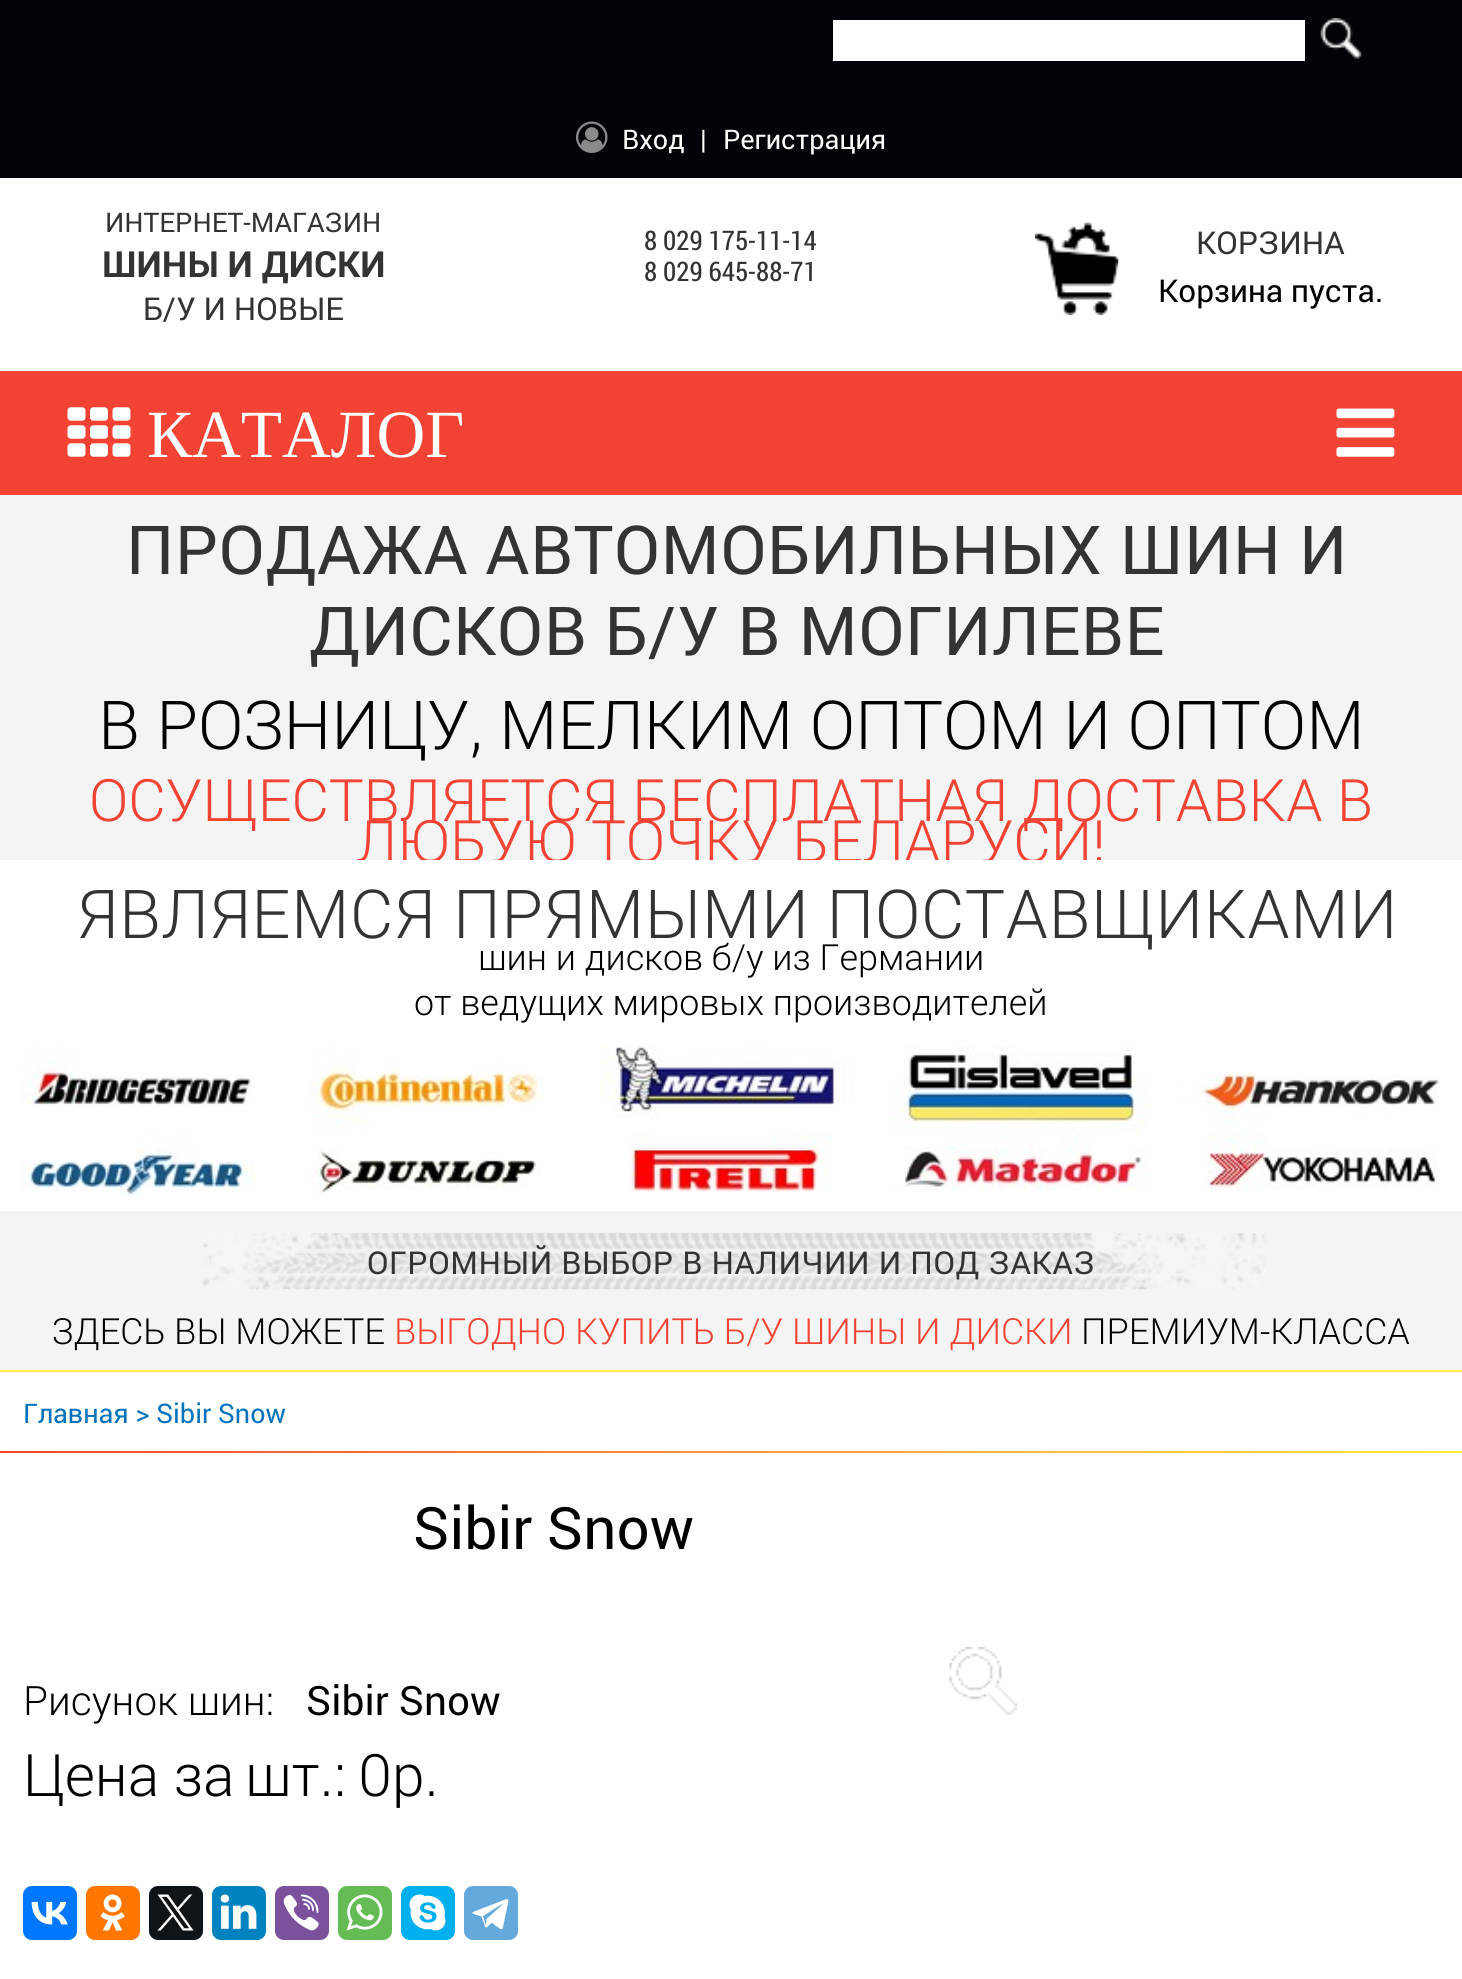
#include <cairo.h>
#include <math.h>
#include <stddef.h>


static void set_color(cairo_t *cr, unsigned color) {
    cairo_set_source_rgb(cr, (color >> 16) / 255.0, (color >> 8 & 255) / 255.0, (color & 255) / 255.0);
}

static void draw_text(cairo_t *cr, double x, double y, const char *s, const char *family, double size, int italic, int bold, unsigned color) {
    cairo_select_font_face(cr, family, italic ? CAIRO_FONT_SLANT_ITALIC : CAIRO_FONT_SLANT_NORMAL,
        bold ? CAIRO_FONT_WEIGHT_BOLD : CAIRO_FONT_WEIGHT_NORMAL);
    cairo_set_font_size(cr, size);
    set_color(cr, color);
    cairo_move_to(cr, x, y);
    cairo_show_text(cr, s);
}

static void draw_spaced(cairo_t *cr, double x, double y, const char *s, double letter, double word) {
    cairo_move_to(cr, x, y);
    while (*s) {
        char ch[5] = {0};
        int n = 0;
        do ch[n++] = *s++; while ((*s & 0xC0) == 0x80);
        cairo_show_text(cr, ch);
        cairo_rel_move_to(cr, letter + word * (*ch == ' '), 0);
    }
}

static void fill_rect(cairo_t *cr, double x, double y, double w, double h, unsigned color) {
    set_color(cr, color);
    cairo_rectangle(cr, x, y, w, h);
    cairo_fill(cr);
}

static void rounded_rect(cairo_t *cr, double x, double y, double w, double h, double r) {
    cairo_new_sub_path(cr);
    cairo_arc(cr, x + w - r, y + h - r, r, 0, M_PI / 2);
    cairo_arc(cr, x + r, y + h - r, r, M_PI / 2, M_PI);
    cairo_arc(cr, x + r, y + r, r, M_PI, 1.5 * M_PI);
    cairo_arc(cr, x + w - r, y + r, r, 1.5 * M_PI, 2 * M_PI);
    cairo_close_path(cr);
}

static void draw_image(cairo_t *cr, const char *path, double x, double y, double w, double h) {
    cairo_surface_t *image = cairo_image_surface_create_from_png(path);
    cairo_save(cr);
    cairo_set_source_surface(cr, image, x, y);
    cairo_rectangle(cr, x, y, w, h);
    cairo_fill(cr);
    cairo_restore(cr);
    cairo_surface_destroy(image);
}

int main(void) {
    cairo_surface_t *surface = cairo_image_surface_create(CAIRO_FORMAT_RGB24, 1462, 1979);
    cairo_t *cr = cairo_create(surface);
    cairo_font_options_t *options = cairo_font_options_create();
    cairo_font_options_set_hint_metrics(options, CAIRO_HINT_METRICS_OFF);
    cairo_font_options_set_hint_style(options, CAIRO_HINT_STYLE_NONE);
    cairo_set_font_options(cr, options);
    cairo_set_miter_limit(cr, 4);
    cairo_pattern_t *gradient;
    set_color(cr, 0xFFFFFF);
    cairo_paint(cr);
    fill_rect(cr, 0, 0, 1462, 178, 0x030208);
    fill_rect(cr, 833, 20, 472, 41, 0xFFFFFF);
    draw_image(cr, "assets/img1.png", 1320, 18, 42, 41);
    draw_image(cr, "assets/img2.png", 576, 121, 32, 32);
    draw_text(cr, 622, 149, "Вход", "Roboto", 27, 0, 0, 0xFFFFFF);
    draw_text(cr, 700, 149, "|", "Roboto", 27, 0, 0, 0xFFFFFF);
    draw_text(cr, 723, 149, "Регистрация", "Roboto", 27, 0, 0, 0xFFFFFF);
    draw_text(cr, 105, 232, "ИНТЕРНЕТ-МАГАЗИН", "Roboto", 27, 0, 0, 0x333333);
    draw_text(cr, 102, 277, "ШИНЫ И ДИСКИ", "Roboto", 36, 0, 1, 0x333333);
    draw_text(cr, 143, 320, "Б/У И НОВЫЕ", "Roboto", 31.5, 0, 0, 0x333333);
    draw_text(cr, 644, 250, "8 029 175-11-14", "Roboto Condensed", 27, 0, 0, 0x333333);
    draw_text(cr, 644, 281, "8 029 645-88-71", "Roboto Condensed", 27, 0, 0, 0x333333);
    draw_image(cr, "assets/img3.png", 1035, 222, 84, 93);
    draw_text(cr, 1196, 254, "КОРЗИНА", "Roboto", 31.5, 0, 0, 0x333333);
    draw_text(cr, 1158, 302, "Корзина пуста.", "Roboto", 31.5, 0, 0, 0x000000);
    fill_rect(cr, 0, 371, 1462, 124, 0xF34334);
    draw_image(cr, "assets/img4.png", 67, 407, 64, 50);
    draw_text(cr, 147, 457, "КАТАЛОГ", "Liberation Serif", 67.5, 0, 0, 0xFFFFFF);
    draw_image(cr, "assets/img5.png", 1336, 408, 59, 49);
    fill_rect(cr, 0, 495, 1462, 878, 0xF4F4F4);
    fill_rect(cr, 0, 1370, 1462, 2, 0xFAED3F);
    cairo_select_font_face(cr, "Roboto", CAIRO_FONT_SLANT_NORMAL, CAIRO_FONT_WEIGHT_NORMAL);
    set_color(cr, 0x333333);
    draw_spaced(cr, 126, 574, "ПРОДАЖА АВТОМОБИЛЬНЫХ ШИН И", 0.65, 0);
    draw_spaced(cr, 309, 655, "ДИСКОВ Б/У В МОГИЛЕВЕ", 0.65, 0);
    draw_text(cr, 98, 749, "В РОЗНИЦУ, МЕЛКИМ ОПТОМ И ОПТОМ", "Roboto Light", 67.5, 0, 0, 0x000000);
    draw_text(cr, 89, 821, "ОСУЩЕСТВЛЯЕТСЯ БЕСПЛАТНАЯ ДОСТАВКА В", "Roboto Light", 58.5, 0, 0, 0xF34334);
    draw_text(cr, 356, 862, "ЛЮБУЮ ТОЧКУ БЕЛАРУСИ!", "Roboto Light", 58.5, 0, 0, 0xF34334);
    fill_rect(cr, 0, 860, 1462, 351, 0xFFFFFF);
    cairo_set_font_size(cr, 67.5);
    set_color(cr, 0x333333);
    draw_spaced(cr, 77, 938, "ЯВЛЯЕМСЯ ПРЯМЫМИ ПОСТАВЩИКАМИ", 0.65, 0);
    draw_text(cr, 478, 970, "шин и дисков б/у из Германии", "Roboto Light", 36, 0, 0, 0x000000);
    draw_text(cr, 414, 1015, "от ведущих мировых производителей", "Roboto Light", 36, 0, 0, 0x000000);
    draw_image(cr, "assets/img6.png", 22, 1046, 1417, 151);
    draw_image(cr, "assets/img7.png", 202, 1233, 1064, 57);
    cairo_select_font_face(cr, "Roboto", CAIRO_FONT_SLANT_NORMAL, CAIRO_FONT_WEIGHT_NORMAL);
    cairo_set_font_size(cr, 31.5);
    set_color(cr, 0x333333);
    draw_spaced(cr, 367, 1274, "ОГРОМНЫЙ ВЫБОР В НАЛИЧИИ И ПОД ЗАКАЗ", 0.65, 0);
    draw_text(cr, 52, 1344, "ЗДЕСЬ ВЫ МОЖЕТЕ", "Roboto Light", 36, 0, 0, 0x000000);
    draw_text(cr, 394, 1344, "ВЫГОДНО КУПИТЬ Б/У ШИНЫ И ДИСКИ", "Roboto Light", 36, 0, 0, 0xF34334);
    draw_text(cr, 1081, 1344, "ПРЕМИУМ-КЛАССА", "Roboto Light", 36, 0, 0, 0x000000);
    draw_text(cr, 23, 1423, "Главная > Sibir Snow", "Roboto", 27, 0, 0, 0x0072BC);
    gradient = cairo_pattern_create_linear(0, 1452, 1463, 1452);
    cairo_pattern_add_color_stop_rgba(gradient, 0, 0.957, 0.263, 0.212, 1);
    cairo_pattern_add_color_stop_rgba(gradient, 0.5, 0.976, 0.58, 0.224, 1);
    cairo_pattern_add_color_stop_rgba(gradient, 1, 1, 0.922, 0.231, 1);
    cairo_set_source(cr, gradient);
    cairo_pattern_destroy(gradient);
    cairo_rectangle(cr, 0, 1451, 1462, 2);
    cairo_fill(cr);
    draw_text(cr, 413, 1549, "Sibir Snow", "Roboto", 58.5, 0, 0, 0x000000);
    draw_text(cr, 23, 1715, "Рисунок шин:", "Roboto Light", 40.5, 0, 0, 0x000000);
    draw_text(cr, 306, 1715, "Sibir Snow", "Roboto", 40.5, 0, 0, 0x000000);
    draw_image(cr, "assets/img8.png", 949, 1647, 68, 68);
    draw_text(cr, 23, 1796, "Цена за", "Roboto Light", 58.5, 0, 0, 0x000000);
    draw_text(cr, 245, 1796, "шт.:", "Roboto Light", 58.5, 0, 0, 0x000000);
    draw_text(cr, 358, 1796, "0р.", "Roboto Light", 58.5, 0, 0, 0x000000);
    set_color(cr, 0x0077FF);
    rounded_rect(cr, 23, 1886, 54, 54, 9);
    cairo_fill(cr);
    draw_image(cr, "assets/img9.png", 31, 1901, 37, 24);
    set_color(cr, 0xFF7700);
    rounded_rect(cr, 86, 1886, 54, 54, 9);
    cairo_fill(cr);
    draw_image(cr, "assets/img10.png", 100, 1894, 25, 37);
    set_color(cr, 0x0F1419);
    rounded_rect(cr, 149, 1886, 54, 54, 9);
    cairo_fill(cr);
    draw_image(cr, "assets/img11.png", 157, 1894, 37, 37);
    set_color(cr, 0x0083BE);
    rounded_rect(cr, 212, 1886, 54, 54, 9);
    cairo_fill(cr);
    draw_image(cr, "assets/img12.png", 220, 1894, 37, 35);
    set_color(cr, 0x7B519D);
    rounded_rect(cr, 275, 1886, 54, 54, 9);
    cairo_fill(cr);
    draw_image(cr, "assets/img13.png", 283, 1894, 36, 37);
    set_color(cr, 0x65BC54);
    rounded_rect(cr, 338, 1886, 54, 54, 9);
    cairo_fill(cr);
    draw_image(cr, "assets/img14.png", 346, 1894, 37, 37);
    set_color(cr, 0x00AFF0);
    rounded_rect(cr, 401, 1886, 54, 54, 9);
    cairo_fill(cr);
    draw_image(cr, "assets/img15.png", 409, 1894, 37, 37);
    set_color(cr, 0x64A9DC);
    rounded_rect(cr, 464, 1886, 54, 54, 9);
    cairo_fill(cr);
    draw_image(cr, "assets/img16.png", 472, 1899, 37, 31);
    cairo_surface_write_to_png(surface, "output.png");
    cairo_font_options_destroy(options);
    cairo_destroy(cr);
    cairo_surface_destroy(surface);
    return 0;
}
